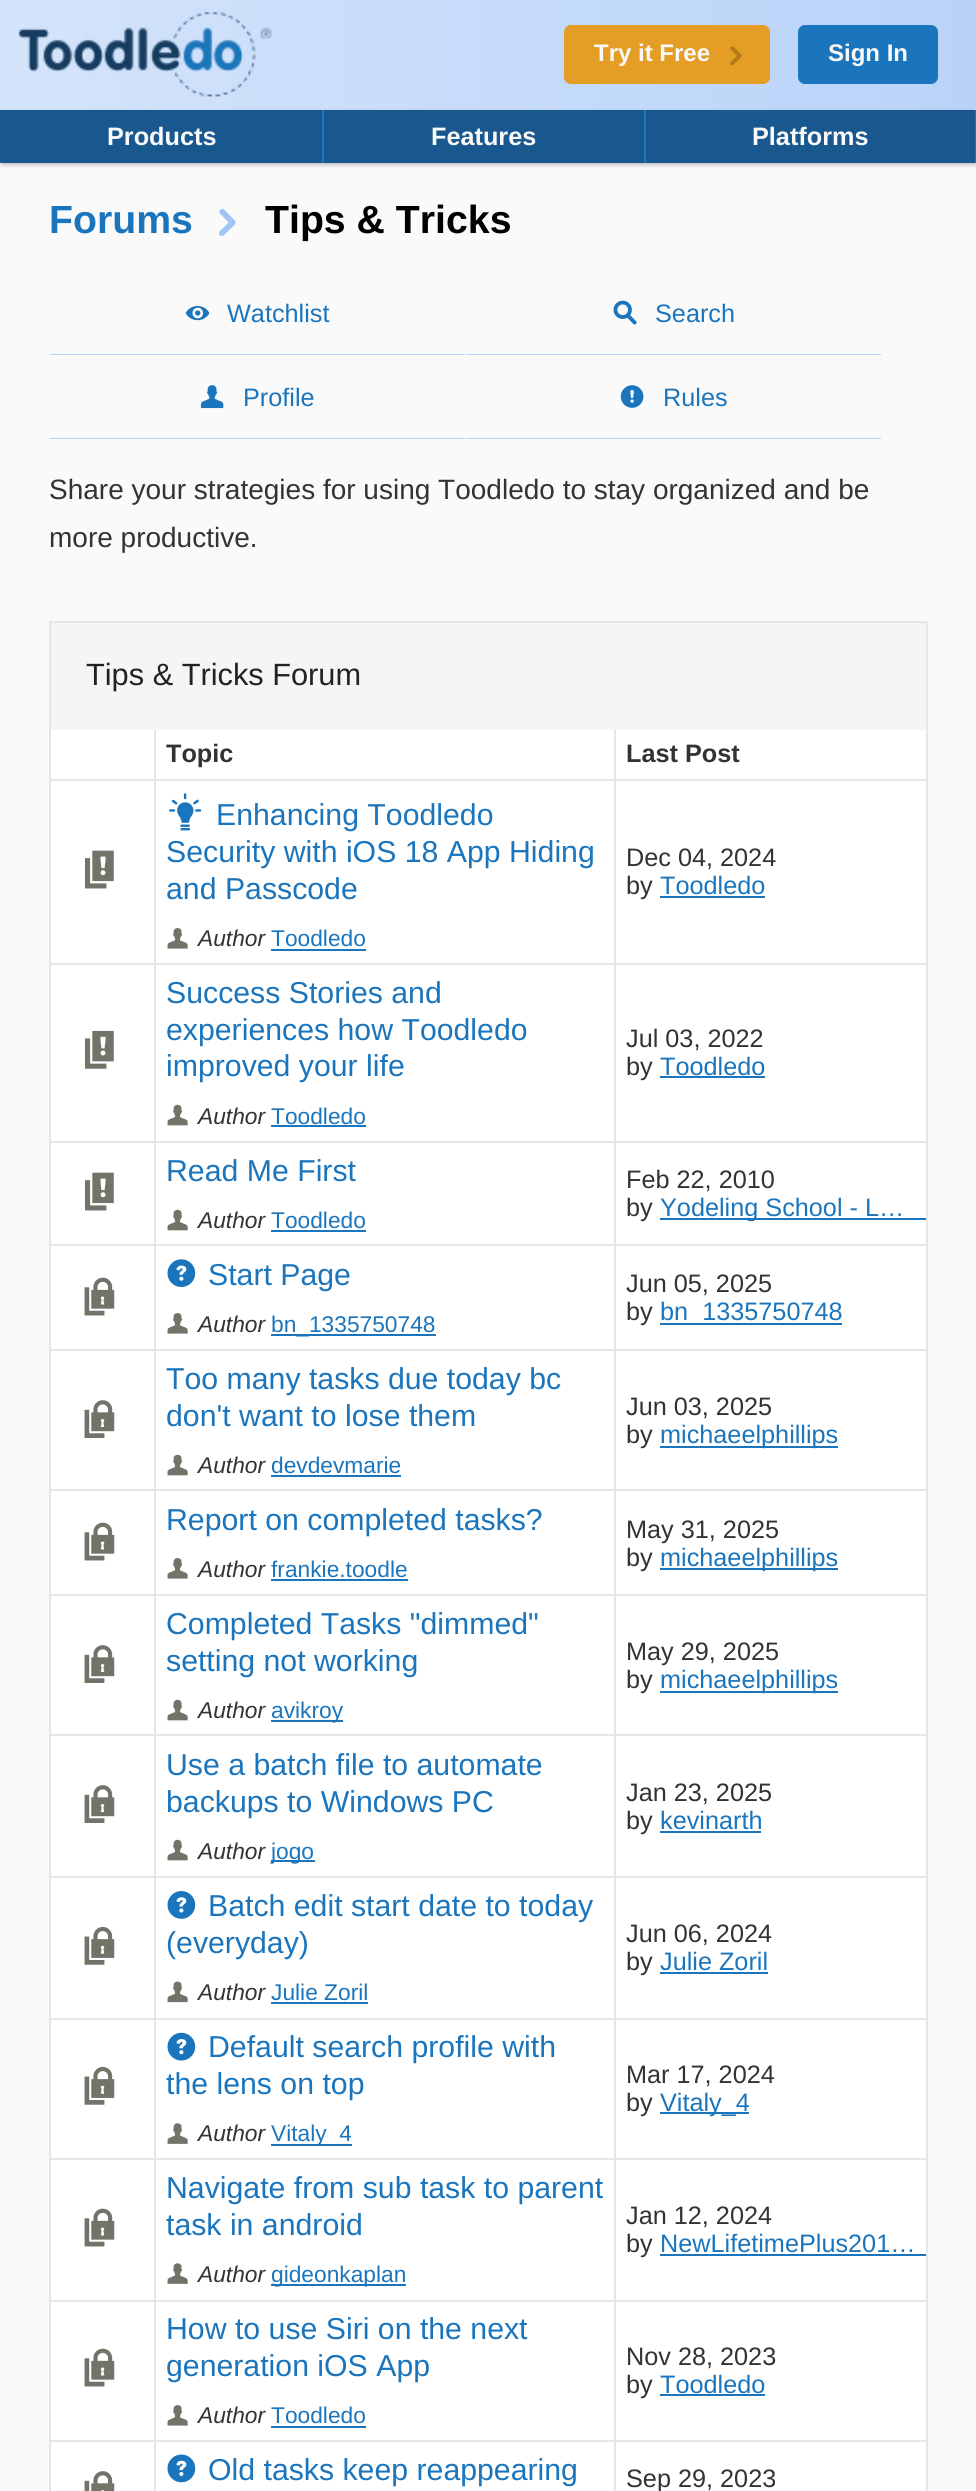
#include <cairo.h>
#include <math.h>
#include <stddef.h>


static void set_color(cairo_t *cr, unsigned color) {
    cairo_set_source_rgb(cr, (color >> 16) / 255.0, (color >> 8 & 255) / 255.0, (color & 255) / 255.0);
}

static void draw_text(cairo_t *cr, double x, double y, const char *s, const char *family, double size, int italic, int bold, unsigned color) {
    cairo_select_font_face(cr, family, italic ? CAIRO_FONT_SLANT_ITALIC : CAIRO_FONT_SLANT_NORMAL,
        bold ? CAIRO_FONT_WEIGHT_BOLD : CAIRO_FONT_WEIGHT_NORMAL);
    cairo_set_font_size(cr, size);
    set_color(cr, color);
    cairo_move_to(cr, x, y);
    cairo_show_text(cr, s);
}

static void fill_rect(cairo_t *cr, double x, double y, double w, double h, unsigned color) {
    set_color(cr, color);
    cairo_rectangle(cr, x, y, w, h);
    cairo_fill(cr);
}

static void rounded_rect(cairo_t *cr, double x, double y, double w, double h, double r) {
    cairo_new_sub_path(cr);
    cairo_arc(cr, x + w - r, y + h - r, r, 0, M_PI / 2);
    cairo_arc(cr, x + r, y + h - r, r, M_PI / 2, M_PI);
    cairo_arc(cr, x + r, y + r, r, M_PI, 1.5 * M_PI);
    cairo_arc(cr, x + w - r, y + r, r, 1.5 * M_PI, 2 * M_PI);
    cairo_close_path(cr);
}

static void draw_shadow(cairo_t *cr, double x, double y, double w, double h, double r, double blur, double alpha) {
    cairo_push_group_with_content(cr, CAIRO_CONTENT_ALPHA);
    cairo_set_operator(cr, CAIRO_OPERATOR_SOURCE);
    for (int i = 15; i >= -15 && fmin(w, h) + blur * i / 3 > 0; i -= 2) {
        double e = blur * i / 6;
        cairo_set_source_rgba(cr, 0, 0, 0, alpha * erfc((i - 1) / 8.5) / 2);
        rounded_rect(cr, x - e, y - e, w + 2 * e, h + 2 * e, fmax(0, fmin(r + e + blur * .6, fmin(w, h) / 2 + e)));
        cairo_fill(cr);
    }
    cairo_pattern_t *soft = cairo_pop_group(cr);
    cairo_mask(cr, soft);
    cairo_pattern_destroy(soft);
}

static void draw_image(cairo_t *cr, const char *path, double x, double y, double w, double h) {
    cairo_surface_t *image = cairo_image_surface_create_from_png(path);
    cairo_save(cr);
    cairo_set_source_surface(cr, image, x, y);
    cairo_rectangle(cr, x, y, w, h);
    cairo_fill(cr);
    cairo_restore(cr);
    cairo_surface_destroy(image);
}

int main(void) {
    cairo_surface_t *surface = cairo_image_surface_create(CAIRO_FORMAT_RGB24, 976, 2491);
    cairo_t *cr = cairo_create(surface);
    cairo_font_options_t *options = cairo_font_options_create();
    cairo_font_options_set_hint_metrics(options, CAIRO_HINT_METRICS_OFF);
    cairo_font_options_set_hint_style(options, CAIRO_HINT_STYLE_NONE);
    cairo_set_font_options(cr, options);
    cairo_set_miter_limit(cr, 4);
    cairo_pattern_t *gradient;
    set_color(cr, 0xFAFAFA);
    cairo_paint(cr);
    gradient = cairo_pattern_create_linear(0, 55, 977, 55);
    cairo_pattern_add_color_stop_rgba(gradient, 0, 0.831, 0.894, 0.984, 1);
    cairo_pattern_add_color_stop_rgba(gradient, 1, 0.725, 0.827, 0.973, 1);
    cairo_set_source(cr, gradient);
    cairo_pattern_destroy(gradient);
    cairo_rectangle(cr, 0, 0, 976, 110);
    cairo_fill(cr);
    draw_image(cr, "assets/img1.png", 18, 11, 254, 86);
    set_color(cr, 0xE49E26);
    rounded_rect(cr, 564, 25, 206, 59, 7);
    cairo_fill(cr);
    draw_text(cr, 594, 61, "Try it Free", "Liberation Sans", 24, 0, 1, 0xFAFAFA);
    draw_image(cr, "assets/img2.png", 730, 46, 12, 20);
    set_color(cr, 0x1B75BC);
    rounded_rect(cr, 798, 25, 140, 59, 7);
    cairo_fill(cr);
    draw_text(cr, 828, 61, "Sign In", "Liberation Sans", 24, 0, 1, 0xFAFAFA);
    set_color(cr, 0x323232);
    draw_shadow(cr, 2, 112, 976, 53, 0, 2, 0.3);
    fill_rect(cr, 0, 110, 975, 53, 0x18588E);
    fill_rect(cr, 322, 110, 2, 53, 0x1B75BC);
    draw_text(cr, 107, 145, "Products", "Liberation Sans", 25.25, 0, 1, 0xFAFAFA);
    fill_rect(cr, 644, 110, 2, 53, 0x1B75BC);
    draw_text(cr, 431, 145, "Features", "Liberation Sans", 25.25, 0, 1, 0xFAFAFA);
    fill_rect(cr, 975, 110, 1, 53, 0x1B75BC);
    draw_text(cr, 752, 145, "Platforms", "Liberation Sans", 25.25, 0, 1, 0xFAFAFA);
    draw_text(cr, 49, 233, "Forums", "Liberation Sans", 39.25, 0, 1, 0x1B75BC);
    draw_image(cr, "assets/img3.png", 219, 208, 17, 28);
    draw_text(cr, 265, 233, "Tips & Tricks", "Liberation Sans", 39.25, 0, 1, 0x000000);
    set_color(cr, 0xB9D3F8);
    cairo_new_path(cr);
    cairo_move_to(cr, 466, 355);
    cairo_line_to(cr, 49, 355);
    cairo_line_to(cr, 51, 354);
    cairo_line_to(cr, 464, 354);
    cairo_close_path(cr);
    cairo_fill(cr);
    draw_image(cr, "assets/img4.png", 185, 305, 25, 16);
    draw_text(cr, 227, 322, "Watchlist", "Liberation Sans", 25.25, 0, 0, 0x1B75BC);
    set_color(cr, 0xB9D3F8);
    cairo_new_path(cr);
    cairo_move_to(cr, 882, 355);
    cairo_line_to(cr, 466, 355);
    cairo_line_to(cr, 467, 354);
    cairo_line_to(cr, 880, 354);
    cairo_close_path(cr);
    cairo_fill(cr);
    draw_image(cr, "assets/img5.png", 613, 300, 24, 25);
    draw_text(cr, 655, 322, "Search", "Liberation Sans", 25.25, 0, 0, 0x1B75BC);
    set_color(cr, 0xB9D3F8);
    cairo_new_path(cr);
    cairo_move_to(cr, 466, 439);
    cairo_line_to(cr, 49, 439);
    cairo_line_to(cr, 51, 438);
    cairo_line_to(cr, 464, 438);
    cairo_close_path(cr);
    cairo_fill(cr);
    draw_image(cr, "assets/img6.png", 200, 385, 24, 24);
    draw_text(cr, 243, 406, "Profile", "Liberation Sans", 25.25, 0, 0, 0x1B75BC);
    set_color(cr, 0xB9D3F8);
    cairo_new_path(cr);
    cairo_move_to(cr, 882, 439);
    cairo_line_to(cr, 466, 439);
    cairo_line_to(cr, 467, 438);
    cairo_line_to(cr, 880, 438);
    cairo_close_path(cr);
    cairo_fill(cr);
    draw_image(cr, "assets/img7.png", 620, 385, 24, 23);
    draw_text(cr, 663, 406, "Rules", "Liberation Sans", 25.25, 0, 0, 0x1B75BC);
    draw_text(cr, 49, 499, "Share your strategies for using Toodledo to stay organized and be", "Liberation Sans", 28, 0, 0, 0x333333);
    draw_text(cr, 49, 547, "more productive.", "Liberation Sans", 28, 0, 0, 0x333333);
    fill_rect(cr, 51, 781, 875, 1710, 0xFFFFFF);
    cairo_rectangle(cr, 50, 622, 877, 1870);
    set_color(cr, 0xE4E6E9);
    cairo_stroke(cr);
    fill_rect(cr, 49, 779, 879, 2, 0xE4E6E9);
    fill_rect(cr, 49, 963, 879, 2, 0xE4E6E9);
    fill_rect(cr, 49, 1141, 879, 2, 0xE4E6E9);
    fill_rect(cr, 49, 1244, 879, 2, 0xE4E6E9);
    fill_rect(cr, 49, 1349, 879, 2, 0xE4E6E9);
    fill_rect(cr, 49, 1489, 879, 2, 0xE4E6E9);
    fill_rect(cr, 49, 1594, 879, 2, 0xE4E6E9);
    fill_rect(cr, 49, 1734, 879, 2, 0xE4E6E9);
    fill_rect(cr, 49, 1876, 879, 2, 0xE4E6E9);
    fill_rect(cr, 49, 2018, 879, 2, 0xE4E6E9);
    fill_rect(cr, 49, 2158, 879, 2, 0xE4E6E9);
    fill_rect(cr, 49, 2300, 879, 2, 0xE4E6E9);
    fill_rect(cr, 49, 2440, 879, 2, 0xE4E6E9);
    fill_rect(cr, 154, 728, 2, 1763, 0xE4E6E9);
    fill_rect(cr, 614, 728, 2, 1763, 0xE4E6E9);
    fill_rect(cr, 51, 623, 875, 107, 0xF5F5F3);
    draw_text(cr, 86, 685, "Tips & Tricks Forum", "Liberation Sans", 30.75, 0, 0, 0x222222);
    fill_rect(cr, 51, 730, 103, 49, 0xFFFFFF);
    fill_rect(cr, 156, 730, 458, 49, 0xFFFFFF);
    draw_text(cr, 166, 762, "Topic", "Liberation Sans", 25.25, 0, 1, 0x333333);
    fill_rect(cr, 616, 730, 310, 49, 0xFFFFFF);
    draw_text(cr, 626, 762, "Last Post", "Liberation Sans", 25.25, 0, 1, 0x333333);
    draw_image(cr, "assets/img8.png", 85, 850, 29, 39);
    draw_image(cr, "assets/img9.png", 169, 793, 33, 38);
    draw_text(cr, 216, 825, "Enhancing Toodledo", "Liberation Sans", 30.25, 0, 0, 0x1B75BC);
    draw_text(cr, 166, 862, "Security with iOS 18 App Hiding", "Liberation Sans", 30.25, 0, 0, 0x1B75BC);
    draw_text(cr, 166, 899, "and Passcode", "Liberation Sans", 30.25, 0, 0, 0x1B75BC);
    draw_image(cr, "assets/img10.png", 167, 928, 21, 21);
    draw_text(cr, 198, 946, "Author", "Liberation Sans", 22.75, 1, 0, 0x333333);
    draw_text(cr, 271, 946, "Toodledo", "Liberation Sans", 22.75, 0, 0, 0x1B75BC);
    fill_rect(cr, 271, 949, 95, 2, 0x1B75BC);
    draw_text(cr, 626, 866, "Dec 04, 2024", "Liberation Sans", 25.25, 0, 0, 0x333333);
    draw_text(cr, 626, 894, "by", "Liberation Sans", 25.25, 0, 0, 0x333333);
    draw_text(cr, 660, 894, "Toodledo", "Liberation Sans", 25.25, 0, 0, 0x1B75BC);
    fill_rect(cr, 660, 896, 105, 2, 0x1B75BC);
    draw_image(cr, "assets/img11.png", 85, 1030, 29, 39);
    draw_text(cr, 166, 1003, "Success Stories and", "Liberation Sans", 30.25, 0, 0, 0x1B75BC);
    draw_text(cr, 166, 1040, "experiences how Toodledo", "Liberation Sans", 30.25, 0, 0, 0x1B75BC);
    draw_text(cr, 166, 1076, "improved your life", "Liberation Sans", 30.25, 0, 0, 0x1B75BC);
    draw_image(cr, "assets/img12.png", 167, 1104, 21, 22);
    draw_text(cr, 198, 1124, "Author", "Liberation Sans", 22.75, 1, 0, 0x333333);
    draw_text(cr, 271, 1124, "Toodledo", "Liberation Sans", 22.75, 0, 0, 0x1B75BC);
    fill_rect(cr, 271, 1125, 95, 2, 0x1B75BC);
    draw_text(cr, 626, 1047, "Jul 03, 2022", "Liberation Sans", 25.25, 0, 0, 0x333333);
    draw_text(cr, 626, 1075, "by", "Liberation Sans", 25.25, 0, 0, 0x333333);
    draw_text(cr, 660, 1075, "Toodledo", "Liberation Sans", 25.25, 0, 0, 0x1B75BC);
    fill_rect(cr, 660, 1076, 105, 2, 0x1B75BC);
    draw_image(cr, "assets/img8.png", 85, 1172, 29, 39);
    draw_text(cr, 166, 1181, "Read Me First", "Liberation Sans", 30.25, 0, 0, 0x1B75BC);
    draw_image(cr, "assets/img13.png", 167, 1209, 21, 22);
    draw_text(cr, 198, 1228, "Author", "Liberation Sans", 22.75, 1, 0, 0x333333);
    draw_text(cr, 271, 1228, "Toodledo", "Liberation Sans", 22.75, 0, 0, 0x1B75BC);
    fill_rect(cr, 271, 1230, 95, 2, 0x1B75BC);
    draw_text(cr, 626, 1188, "Feb 22, 2010", "Liberation Sans", 25.25, 0, 0, 0x333333);
    draw_text(cr, 626, 1216, "by", "Liberation Sans", 25.25, 0, 0, 0x333333);
    fill_rect(cr, 660, 1218, 266, 2, 0x1B75BC);
    draw_text(cr, 660, 1216, "Yodeling School - L…", "Liberation Sans", 25.25, 0, 0, 0x1B75BC);
    draw_image(cr, "assets/img14.png", 84, 1277, 31, 39);
    draw_image(cr, "assets/img15.png", 167, 1259, 29, 28);
    draw_text(cr, 208, 1285, "Start Page", "Liberation Sans", 30.25, 0, 0, 0x1B75BC);
    draw_image(cr, "assets/img16.png", 167, 1313, 21, 21);
    draw_text(cr, 198, 1332, "Author", "Liberation Sans", 22.75, 1, 0, 0x333333);
    fill_rect(cr, 271, 1334, 165, 2, 0x1B75BC);
    draw_text(cr, 271, 1332, "bn_1335750748", "Liberation Sans", 22.75, 0, 0, 0x1B75BC);
    draw_text(cr, 626, 1292, "Jun 05, 2025", "Liberation Sans", 25.25, 0, 0, 0x333333);
    draw_text(cr, 626, 1320, "by", "Liberation Sans", 25.25, 0, 0, 0x333333);
    fill_rect(cr, 660, 1323, 182, 2, 0x1B75BC);
    draw_text(cr, 660, 1320, "bn_1335750748", "Liberation Sans", 25.25, 0, 0, 0x1B75BC);
    draw_image(cr, "assets/img17.png", 84, 1400, 31, 38);
    draw_text(cr, 166, 1389, "Too many tasks due today bc", "Liberation Sans", 30.25, 0, 0, 0x1B75BC);
    draw_text(cr, 166, 1426, "don't want to lose them", "Liberation Sans", 30.25, 0, 0, 0x1B75BC);
    draw_image(cr, "assets/img13.png", 167, 1454, 21, 22);
    draw_text(cr, 198, 1473, "Author", "Liberation Sans", 22.75, 1, 0, 0x333333);
    draw_text(cr, 271, 1473, "devdevmarie", "Liberation Sans", 22.75, 0, 0, 0x1B75BC);
    fill_rect(cr, 271, 1475, 130, 2, 0x1B75BC);
    draw_text(cr, 626, 1415, "Jun 03, 2025", "Liberation Sans", 25.25, 0, 0, 0x333333);
    draw_text(cr, 626, 1443, "by", "Liberation Sans", 25.25, 0, 0, 0x333333);
    fill_rect(cr, 660, 1446, 178, 2, 0x1B75BC);
    draw_text(cr, 660, 1443, "michaeelphillips", "Liberation Sans", 25.25, 0, 0, 0x1B75BC);
    draw_image(cr, "assets/img14.png", 84, 1522, 31, 39);
    draw_text(cr, 166, 1530, "Report on completed tasks?", "Liberation Sans", 30.25, 0, 0, 0x1B75BC);
    draw_image(cr, "assets/img16.png", 167, 1558, 21, 21);
    draw_text(cr, 198, 1577, "Author", "Liberation Sans", 22.75, 1, 0, 0x333333);
    draw_text(cr, 271, 1577, "frankie.toodle", "Liberation Sans", 22.75, 0, 0, 0x1B75BC);
    fill_rect(cr, 271, 1579, 137, 2, 0x1B75BC);
    draw_text(cr, 626, 1538, "May 31, 2025", "Liberation Sans", 25.25, 0, 0, 0x333333);
    draw_text(cr, 626, 1566, "by", "Liberation Sans", 25.25, 0, 0, 0x333333);
    fill_rect(cr, 660, 1568, 178, 2, 0x1B75BC);
    draw_text(cr, 660, 1566, "michaeelphillips", "Liberation Sans", 25.25, 0, 0, 0x1B75BC);
    draw_image(cr, "assets/img17.png", 84, 1645, 31, 38);
    draw_text(cr, 166, 1634, "Completed Tasks \"dimmed\"", "Liberation Sans", 30.25, 0, 0, 0x1B75BC);
    draw_text(cr, 166, 1671, "setting not working", "Liberation Sans", 30.25, 0, 0, 0x1B75BC);
    draw_image(cr, "assets/img13.png", 167, 1699, 21, 22);
    draw_text(cr, 198, 1718, "Author", "Liberation Sans", 22.75, 1, 0, 0x333333);
    fill_rect(cr, 271, 1720, 72, 2, 0x1B75BC);
    draw_text(cr, 271, 1718, "avikroy", "Liberation Sans", 22.75, 0, 0, 0x1B75BC);
    draw_text(cr, 626, 1660, "May 29, 2025", "Liberation Sans", 25.25, 0, 0, 0x333333);
    draw_text(cr, 626, 1688, "by", "Liberation Sans", 25.25, 0, 0, 0x333333);
    fill_rect(cr, 660, 1691, 178, 2, 0x1B75BC);
    draw_text(cr, 660, 1688, "michaeelphillips", "Liberation Sans", 25.25, 0, 0, 0x1B75BC);
    draw_image(cr, "assets/img18.png", 84, 1785, 31, 38);
    draw_text(cr, 166, 1775, "Use a batch file to automate", "Liberation Sans", 30.25, 0, 0, 0x1B75BC);
    draw_text(cr, 166, 1812, "backups to Windows PC", "Liberation Sans", 30.25, 0, 0, 0x1B75BC);
    draw_image(cr, "assets/img12.png", 167, 1839, 21, 22);
    draw_text(cr, 198, 1859, "Author", "Liberation Sans", 22.75, 1, 0, 0x333333);
    fill_rect(cr, 271, 1860, 44, 2, 0x1B75BC);
    draw_text(cr, 271, 1859, "jogo", "Liberation Sans", 22.75, 0, 0, 0x1B75BC);
    draw_text(cr, 626, 1801, "Jan 23, 2025", "Liberation Sans", 25.25, 0, 0, 0x333333);
    draw_text(cr, 626, 1829, "by", "Liberation Sans", 25.25, 0, 0, 0x333333);
    draw_text(cr, 660, 1829, "kevinarth", "Liberation Sans", 25.25, 0, 0, 0x1B75BC);
    fill_rect(cr, 660, 1831, 101, 2, 0x1B75BC);
    draw_image(cr, "assets/img19.png", 84, 1926, 31, 39);
    draw_image(cr, "assets/img20.png", 167, 1891, 29, 28);
    draw_text(cr, 208, 1916, "Batch edit start date to today", "Liberation Sans", 30.25, 0, 0, 0x1B75BC);
    draw_text(cr, 166, 1953, "(everyday)", "Liberation Sans", 30.25, 0, 0, 0x1B75BC);
    draw_image(cr, "assets/img21.png", 167, 1981, 21, 22);
    draw_text(cr, 198, 2000, "Author", "Liberation Sans", 22.75, 1, 0, 0x333333);
    draw_text(cr, 271, 2000, "Julie Zoril", "Liberation Sans", 22.75, 0, 0, 0x1B75BC);
    fill_rect(cr, 271, 2002, 97, 2, 0x1B75BC);
    draw_text(cr, 626, 1942, "Jun 06, 2024", "Liberation Sans", 25.25, 0, 0, 0x333333);
    draw_text(cr, 626, 1970, "by", "Liberation Sans", 25.25, 0, 0, 0x333333);
    draw_text(cr, 660, 1970, "Julie Zoril", "Liberation Sans", 25.25, 0, 0, 0x1B75BC);
    fill_rect(cr, 660, 1972, 108, 2, 0x1B75BC);
    draw_image(cr, "assets/img22.png", 84, 2066, 31, 39);
    draw_image(cr, "assets/img23.png", 167, 2032, 29, 29);
    draw_text(cr, 208, 2057, "Default search profile with", "Liberation Sans", 30.25, 0, 0, 0x1B75BC);
    draw_text(cr, 166, 2094, "the lens on top", "Liberation Sans", 30.25, 0, 0, 0x1B75BC);
    draw_image(cr, "assets/img24.png", 167, 2123, 21, 21);
    draw_text(cr, 198, 2141, "Author", "Liberation Sans", 22.75, 1, 0, 0x333333);
    fill_rect(cr, 271, 2144, 81, 2, 0x1B75BC);
    draw_text(cr, 271, 2141, "Vitaly_4", "Liberation Sans", 22.75, 0, 0, 0x1B75BC);
    draw_text(cr, 626, 2083, "Mar 17, 2024", "Liberation Sans", 25.25, 0, 0, 0x333333);
    draw_text(cr, 626, 2111, "by", "Liberation Sans", 25.25, 0, 0, 0x333333);
    fill_rect(cr, 660, 2112, 89, 2, 0x1B75BC);
    draw_text(cr, 660, 2111, "Vitaly_4", "Liberation Sans", 25.25, 0, 0, 0x1B75BC);
    draw_image(cr, "assets/img25.png", 84, 2208, 31, 39);
    draw_text(cr, 166, 2198, "Navigate from sub task to parent", "Liberation Sans", 30.25, 0, 0, 0x1B75BC);
    draw_text(cr, 166, 2235, "task in android", "Liberation Sans", 30.25, 0, 0, 0x1B75BC);
    draw_image(cr, "assets/img26.png", 167, 2263, 21, 21);
    draw_text(cr, 198, 2282, "Author", "Liberation Sans", 22.75, 1, 0, 0x333333);
    fill_rect(cr, 271, 2284, 135, 2, 0x1B75BC);
    draw_text(cr, 271, 2282, "gideonkaplan", "Liberation Sans", 22.75, 0, 0, 0x1B75BC);
    draw_text(cr, 626, 2224, "Jan 12, 2024", "Liberation Sans", 25.25, 0, 0, 0x333333);
    draw_text(cr, 626, 2252, "by", "Liberation Sans", 25.25, 0, 0, 0x333333);
    draw_text(cr, 660, 2252, "NewLifetimePlus201…", "Liberation Sans", 25.25, 0, 0, 0x1B75BC);
    fill_rect(cr, 660, 2254, 266, 2, 0x1B75BC);
    draw_image(cr, "assets/img14.png", 84, 2348, 31, 39);
    draw_text(cr, 166, 2339, "How to use Siri on the next", "Liberation Sans", 30.25, 0, 0, 0x1B75BC);
    draw_text(cr, 166, 2376, "generation iOS App", "Liberation Sans", 30.25, 0, 0, 0x1B75BC);
    draw_image(cr, "assets/img16.png", 167, 2405, 21, 21);
    draw_text(cr, 198, 2423, "Author", "Liberation Sans", 22.75, 1, 0, 0x333333);
    draw_text(cr, 271, 2423, "Toodledo", "Liberation Sans", 22.75, 0, 0, 0x1B75BC);
    fill_rect(cr, 271, 2426, 95, 2, 0x1B75BC);
    draw_text(cr, 626, 2365, "Nov 28, 2023", "Liberation Sans", 25.25, 0, 0, 0x333333);
    draw_text(cr, 626, 2393, "by", "Liberation Sans", 25.25, 0, 0, 0x333333);
    draw_text(cr, 660, 2393, "Toodledo", "Liberation Sans", 25.25, 0, 0, 0x1B75BC);
    fill_rect(cr, 660, 2394, 105, 2, 0x1B75BC);
    draw_image(cr, "assets/img27.png", 84, 2471, 31, 20);
    draw_image(cr, "assets/img28.png", 167, 2454, 29, 29);
    draw_text(cr, 208, 2480, "Old tasks keep reappearing", "Liberation Sans", 30.25, 0, 0, 0x1B75BC);
    draw_text(cr, 626, 2487, "Sep 29, 2023", "Liberation Sans", 25.25, 0, 0, 0x333333);
    cairo_surface_write_to_png(surface, "output.png");
    cairo_font_options_destroy(options);
    cairo_destroy(cr);
    cairo_surface_destroy(surface);
    return 0;
}
